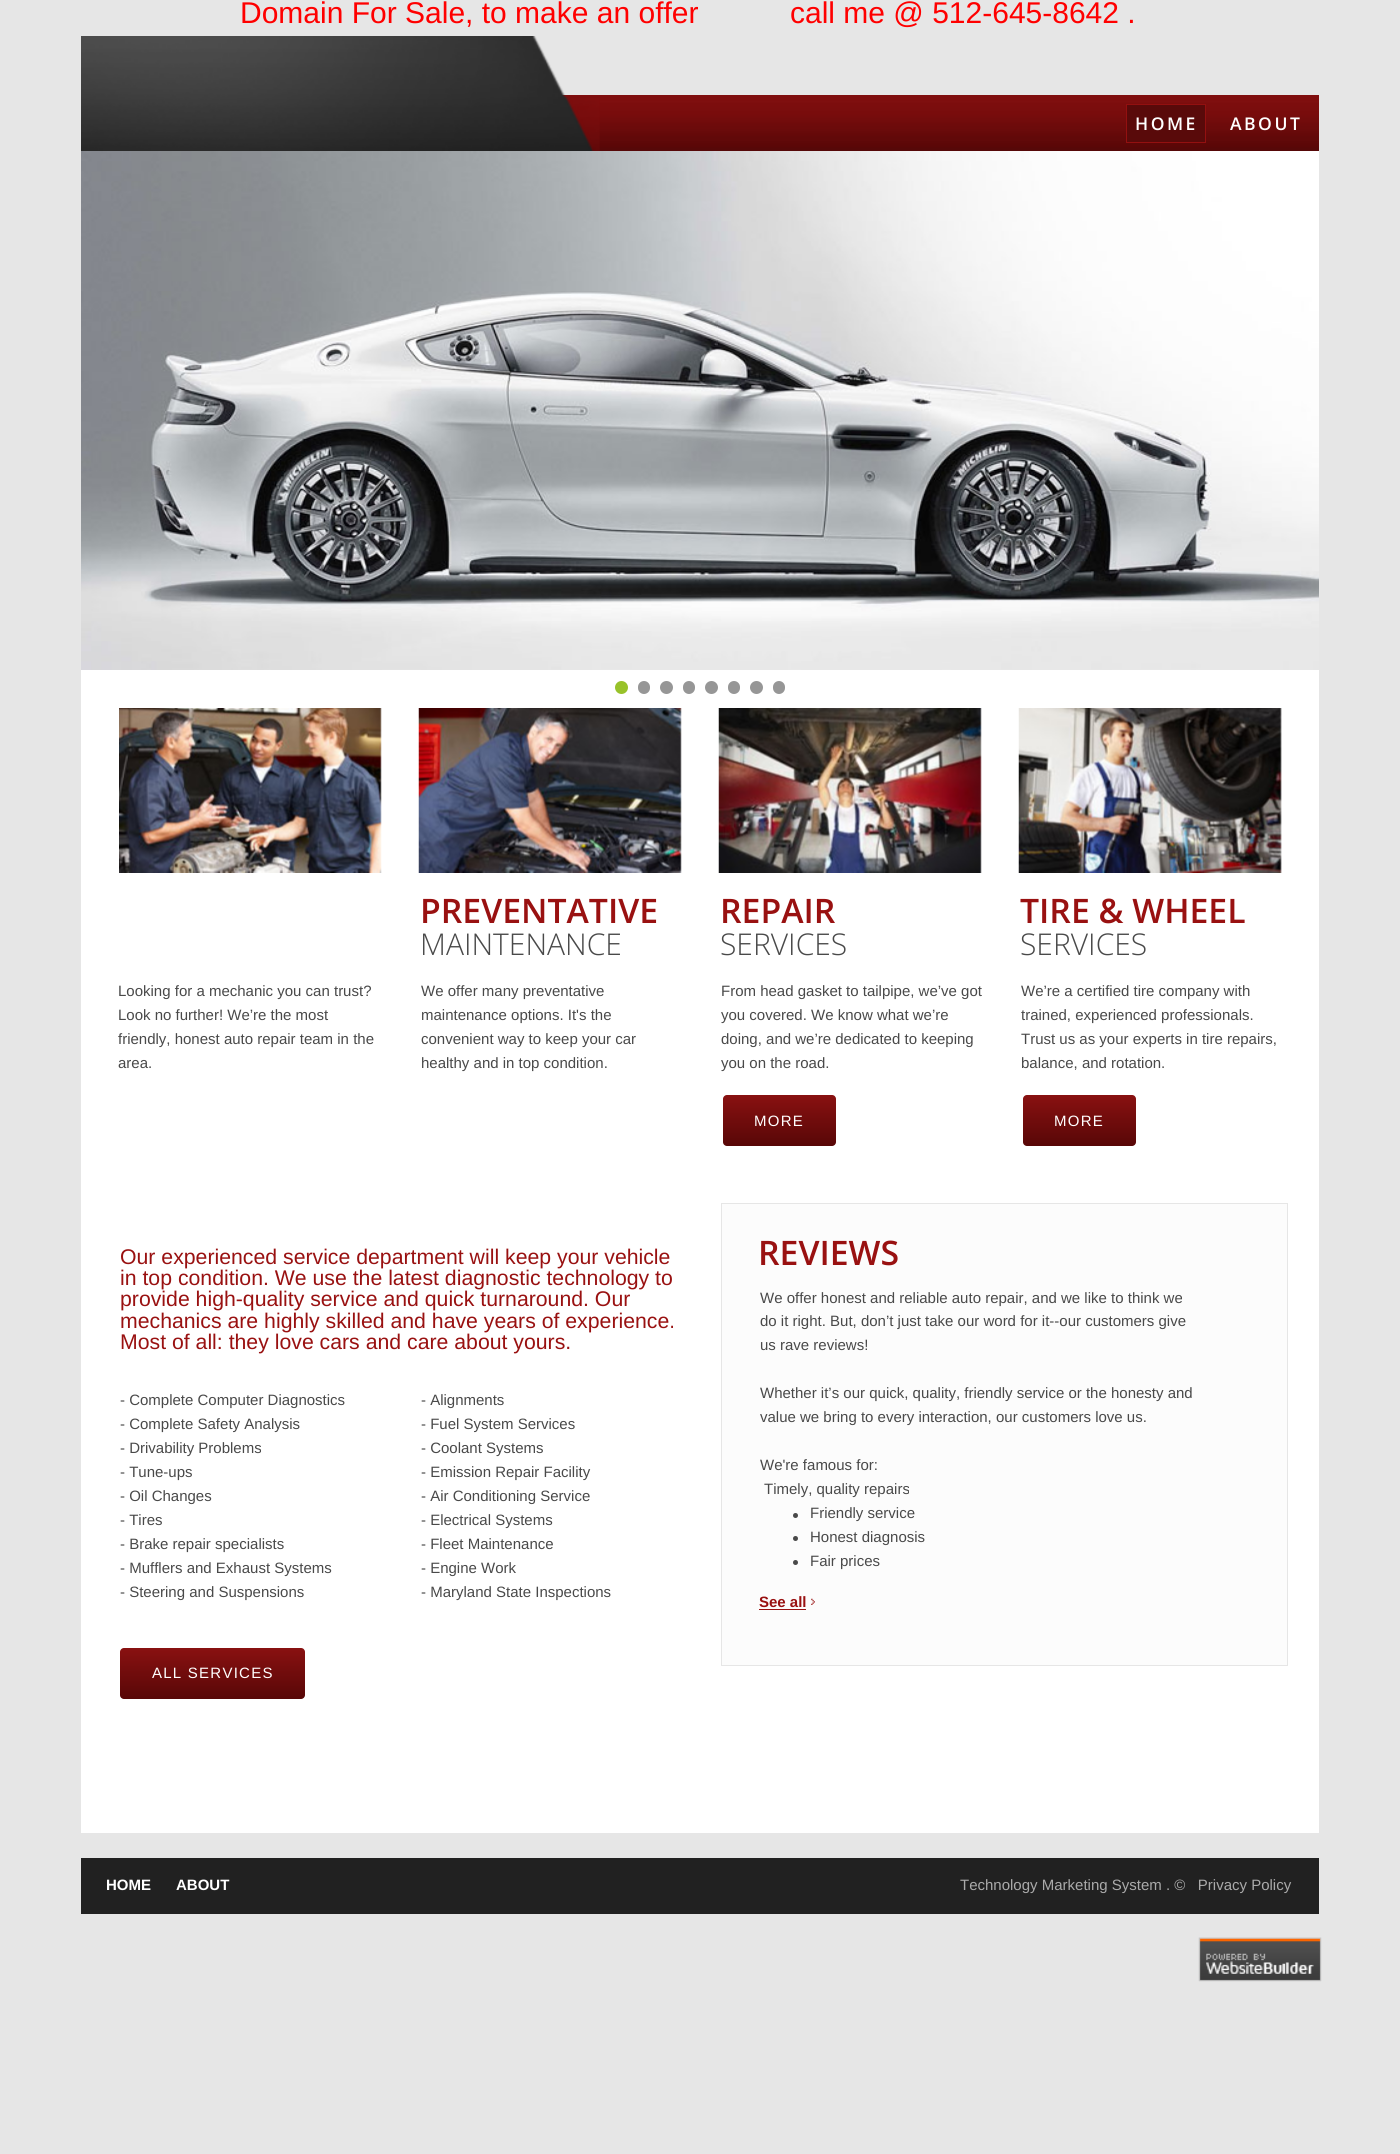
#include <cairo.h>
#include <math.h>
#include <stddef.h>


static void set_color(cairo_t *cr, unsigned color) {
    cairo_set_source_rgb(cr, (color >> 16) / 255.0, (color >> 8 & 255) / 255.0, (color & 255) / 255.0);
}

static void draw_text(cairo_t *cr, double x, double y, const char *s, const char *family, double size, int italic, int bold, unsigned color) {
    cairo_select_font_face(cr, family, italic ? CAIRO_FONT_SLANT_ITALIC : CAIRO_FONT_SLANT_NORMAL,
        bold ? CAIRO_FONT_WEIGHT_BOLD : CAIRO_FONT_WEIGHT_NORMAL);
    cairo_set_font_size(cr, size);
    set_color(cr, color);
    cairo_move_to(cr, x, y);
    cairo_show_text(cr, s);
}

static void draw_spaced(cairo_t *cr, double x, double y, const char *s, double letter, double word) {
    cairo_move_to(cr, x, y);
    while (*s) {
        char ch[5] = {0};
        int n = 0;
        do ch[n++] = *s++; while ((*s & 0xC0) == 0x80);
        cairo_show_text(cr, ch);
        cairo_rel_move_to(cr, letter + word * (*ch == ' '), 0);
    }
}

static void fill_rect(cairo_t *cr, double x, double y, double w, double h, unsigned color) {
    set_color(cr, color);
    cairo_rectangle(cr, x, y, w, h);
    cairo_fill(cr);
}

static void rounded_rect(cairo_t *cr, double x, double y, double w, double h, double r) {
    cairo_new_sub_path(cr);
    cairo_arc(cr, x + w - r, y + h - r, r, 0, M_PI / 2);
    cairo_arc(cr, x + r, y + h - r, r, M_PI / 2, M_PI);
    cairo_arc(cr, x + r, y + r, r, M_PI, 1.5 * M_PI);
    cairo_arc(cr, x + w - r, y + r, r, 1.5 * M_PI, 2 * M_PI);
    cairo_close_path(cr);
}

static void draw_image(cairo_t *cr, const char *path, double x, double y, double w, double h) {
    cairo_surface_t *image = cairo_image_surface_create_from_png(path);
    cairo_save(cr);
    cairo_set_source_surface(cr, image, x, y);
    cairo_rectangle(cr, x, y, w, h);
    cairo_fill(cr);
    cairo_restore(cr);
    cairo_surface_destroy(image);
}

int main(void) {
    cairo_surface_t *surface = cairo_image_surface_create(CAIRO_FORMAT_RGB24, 1400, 2154);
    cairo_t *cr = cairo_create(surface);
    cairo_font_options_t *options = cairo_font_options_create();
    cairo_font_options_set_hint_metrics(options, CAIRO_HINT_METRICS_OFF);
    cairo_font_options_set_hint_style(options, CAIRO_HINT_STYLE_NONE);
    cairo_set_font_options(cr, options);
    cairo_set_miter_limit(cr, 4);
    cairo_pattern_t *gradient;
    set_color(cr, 0xE6E6E6);
    cairo_paint(cr);
    fill_rect(cr, 81, 670, 1238, 1163, 0xFFFFFF);
    draw_text(cr, 240, 23, "Domain For Sale, to make an offer", "Liberation Sans", 30, 0, 0, 0xFF0000);
    draw_text(cr, 790, 23, "call me @ 512-645-8642 .", "Liberation Sans", 30, 0, 0, 0xFF0000);
    draw_image(cr, "assets/img2.png", 561, 95, 758, 56);
    draw_image(cr, "assets/img1.png", 81, 36, 519, 115);
    set_color(cr, 0x590A0A);
    cairo_rectangle(cr, 1126.5, 104.5, 79, 38);
    cairo_fill_preserve(cr);
    set_color(cr, 0x931010);
    cairo_set_line_width(cr, 1);
    cairo_stroke(cr);
    cairo_select_font_face(cr, "Open Sans SemiBold", CAIRO_FONT_SLANT_NORMAL, CAIRO_FONT_WEIGHT_NORMAL);
    cairo_set_font_size(cr, 17.5);
    set_color(cr, 0xFFFFFF);
    draw_spaced(cr, 1135, 130, "HOME", 2.5, 0);
    draw_spaced(cr, 1230, 130, "ABOUT", 2.5, 0);
    draw_image(cr, "assets/img3.png", 81, 151, 1238, 519);
    set_color(cr, 0x98C22A);
    cairo_arc(cr, 621.5, 687.5, 6.5, 0, 2 * M_PI);
    cairo_fill(cr);
    set_color(cr, 0x969696);
    rounded_rect(cr, 638, 681, 12, 13, 6);
    cairo_fill(cr);
    cairo_arc(cr, 666.5, 687.5, 6.5, 0, 2 * M_PI);
    cairo_fill(cr);
    rounded_rect(cr, 683, 681, 12, 13, 6);
    cairo_fill(cr);
    cairo_arc(cr, 711.5, 687.5, 6.5, 0, 2 * M_PI);
    cairo_fill(cr);
    rounded_rect(cr, 728, 681, 12, 13, 6);
    cairo_fill(cr);
    cairo_arc(cr, 756.5, 687.5, 6.5, 0, 2 * M_PI);
    cairo_fill(cr);
    rounded_rect(cr, 773, 681, 12, 13, 6);
    cairo_fill(cr);
    draw_image(cr, "assets/img4.png", 119, 708, 263, 165);
    draw_image(cr, "assets/img5.png", 418, 708, 264, 165);
    draw_image(cr, "assets/img6.png", 718, 708, 264, 165);
    draw_image(cr, "assets/img7.png", 1018, 708, 264, 165);
    draw_text(cr, 420, 923, "PREVENTATIVE", "Open Sans SemiBold", 33.75, 0, 0, 0x991111);
    draw_text(cr, 420, 955, "MAINTENANCE", "Open Sans Light", 30, 0, 0, 0x494949);
    draw_text(cr, 720, 923, "REPAIR", "Open Sans SemiBold", 33.75, 0, 0, 0x991111);
    draw_text(cr, 720, 955, "SERVICES", "Open Sans Light", 30, 0, 0, 0x494949);
    draw_text(cr, 1020, 923, "TIRE & WHEEL", "Open Sans SemiBold", 33.75, 0, 0, 0x991111);
    draw_text(cr, 1020, 955, "SERVICES", "Open Sans Light", 30, 0, 0, 0x494949);
    draw_text(cr, 118, 996, "Looking for a mechanic you can trust?", "Liberation Sans", 15, 0, 0, 0x494949);
    draw_text(cr, 118, 1020, "Look no further! We’re the most", "Liberation Sans", 15, 0, 0, 0x494949);
    draw_text(cr, 118, 1044, "friendly, honest auto repair team in the", "Liberation Sans", 15, 0, 0, 0x494949);
    draw_text(cr, 118, 1068, "area.", "Liberation Sans", 15, 0, 0, 0x494949);
    draw_text(cr, 421, 996, "We offer many preventative", "Liberation Sans", 15, 0, 0, 0x494949);
    draw_text(cr, 421, 1020, "maintenance options. It's the", "Liberation Sans", 15, 0, 0, 0x494949);
    draw_text(cr, 421, 1044, "convenient way to keep your car", "Liberation Sans", 15, 0, 0, 0x494949);
    draw_text(cr, 421, 1068, "healthy and in top condition.", "Liberation Sans", 15, 0, 0, 0x494949);
    draw_text(cr, 721, 996, "From head gasket to tailpipe, we’ve got", "Liberation Sans", 15, 0, 0, 0x494949);
    draw_text(cr, 721, 1020, "you covered. We know what we’re", "Liberation Sans", 15, 0, 0, 0x494949);
    draw_text(cr, 721, 1044, "doing, and we’re dedicated to keeping", "Liberation Sans", 15, 0, 0, 0x494949);
    draw_text(cr, 721, 1068, "you on the road.", "Liberation Sans", 15, 0, 0, 0x494949);
    draw_text(cr, 1021, 996, "We’re a certified tire company with", "Liberation Sans", 15, 0, 0, 0x494949);
    draw_text(cr, 1021, 1020, "trained, experienced professionals.", "Liberation Sans", 15, 0, 0, 0x494949);
    draw_text(cr, 1021, 1044, "Trust us as your experts in tire repairs,", "Liberation Sans", 15, 0, 0, 0x494949);
    draw_text(cr, 1021, 1068, "balance, and rotation.", "Liberation Sans", 15, 0, 0, 0x494949);
    gradient = cairo_pattern_create_linear(779, 1095, 779, 1146);
    cairo_pattern_add_color_stop_rgba(gradient, 0, 0.537, 0.067, 0.067, 1);
    cairo_pattern_add_color_stop_rgba(gradient, 1, 0.345, 0.027, 0.027, 1);
    cairo_set_source(cr, gradient);
    cairo_pattern_destroy(gradient);
    rounded_rect(cr, 723, 1095, 113, 51, 4);
    cairo_fill(cr);
    set_color(cr, 0xFFFFFF);
    draw_spaced(cr, 754, 1126, "MORE", 1.25, 0);
    gradient = cairo_pattern_create_linear(1079, 1095, 1079, 1146);
    cairo_pattern_add_color_stop_rgba(gradient, 0, 0.537, 0.067, 0.067, 1);
    cairo_pattern_add_color_stop_rgba(gradient, 1, 0.345, 0.027, 0.027, 1);
    cairo_set_source(cr, gradient);
    cairo_pattern_destroy(gradient);
    rounded_rect(cr, 1023, 1095, 113, 51, 4);
    cairo_fill(cr);
    set_color(cr, 0xFFFFFF);
    draw_spaced(cr, 1054, 1126, "MORE", 1.25, 0);
    set_color(cr, 0xFCFCFC);
    cairo_rectangle(cr, 721.5, 1203.5, 566, 462);
    cairo_fill_preserve(cr);
    set_color(cr, 0xE6E6E6);
    cairo_stroke(cr);
    draw_text(cr, 120, 1264, "Our experienced service department will keep your vehicle", "Liberation Sans", 21.25, 0, 0, 0x991111);
    draw_text(cr, 120, 1285, "in top condition. We use the latest diagnostic technology to", "Liberation Sans", 21.25, 0, 0, 0x991111);
    draw_text(cr, 120, 1306, "provide high-quality service and quick turnaround. Our", "Liberation Sans", 21.25, 0, 0, 0x991111);
    draw_text(cr, 120, 1328, "mechanics are highly skilled and have years of experience.", "Liberation Sans", 21.25, 0, 0, 0x991111);
    draw_text(cr, 120, 1349, "Most of all: they love cars and care about yours.", "Liberation Sans", 21.25, 0, 0, 0x991111);
    draw_text(cr, 758, 1265, "REVIEWS", "Open Sans SemiBold", 33.75, 0, 0, 0x991111);
    draw_text(cr, 120, 1405, "- Complete Computer Diagnostics", "Liberation Sans", 15, 0, 0, 0x494949);
    draw_text(cr, 120, 1429, "- Complete Safety Analysis", "Liberation Sans", 15, 0, 0, 0x494949);
    draw_text(cr, 120, 1453, "- Drivability Problems", "Liberation Sans", 15, 0, 0, 0x494949);
    draw_text(cr, 120, 1477, "- Tune-ups", "Liberation Sans", 15, 0, 0, 0x494949);
    draw_text(cr, 120, 1501, "- Oil Changes", "Liberation Sans", 15, 0, 0, 0x494949);
    draw_text(cr, 120, 1525, "- Tires", "Liberation Sans", 15, 0, 0, 0x494949);
    draw_text(cr, 120, 1549, "- Brake repair specialists", "Liberation Sans", 15, 0, 0, 0x494949);
    draw_text(cr, 120, 1573, "- Mufflers and Exhaust Systems", "Liberation Sans", 15, 0, 0, 0x494949);
    draw_text(cr, 120, 1597, "- Steering and Suspensions", "Liberation Sans", 15, 0, 0, 0x494949);
    draw_text(cr, 421, 1405, "- Alignments", "Liberation Sans", 15, 0, 0, 0x494949);
    draw_text(cr, 421, 1429, "- Fuel System Services", "Liberation Sans", 15, 0, 0, 0x494949);
    draw_text(cr, 421, 1453, "- Coolant Systems", "Liberation Sans", 15, 0, 0, 0x494949);
    draw_text(cr, 421, 1477, "- Emission Repair Facility", "Liberation Sans", 15, 0, 0, 0x494949);
    draw_text(cr, 421, 1501, "- Air Conditioning Service", "Liberation Sans", 15, 0, 0, 0x494949);
    draw_text(cr, 421, 1525, "- Electrical Systems", "Liberation Sans", 15, 0, 0, 0x494949);
    draw_text(cr, 421, 1549, "- Fleet Maintenance", "Liberation Sans", 15, 0, 0, 0x494949);
    draw_text(cr, 421, 1573, "- Engine Work", "Liberation Sans", 15, 0, 0, 0x494949);
    draw_text(cr, 421, 1597, "- Maryland State Inspections", "Liberation Sans", 15, 0, 0, 0x494949);
    draw_text(cr, 760, 1303, "We offer honest and reliable auto repair, and we like to think we", "Liberation Sans", 15, 0, 0, 0x494949);
    draw_text(cr, 760, 1326, "do it right. But, don’t just take our word for it--our customers give", "Liberation Sans", 15, 0, 0, 0x494949);
    draw_text(cr, 760, 1350, "us rave reviews!", "Liberation Sans", 15, 0, 0, 0x494949);
    draw_text(cr, 760, 1398, "Whether it’s our quick, quality, friendly service or the honesty and", "Liberation Sans", 15, 0, 0, 0x494949);
    draw_text(cr, 760, 1422, "value we bring to every interaction, our customers love us.", "Liberation Sans", 15, 0, 0, 0x494949);
    draw_text(cr, 760, 1470, "We're famous for:", "Liberation Sans", 15, 0, 0, 0x494949);
    draw_text(cr, 764, 1494, "Timely, quality repairs", "Liberation Sans", 15, 0, 0, 0x494949);
    cairo_new_path(cr);
    cairo_arc(cr, 795.5, 1515.5, 2.5, 0, 2 * M_PI);
    cairo_fill(cr);
    draw_text(cr, 810, 1518, "Friendly service", "Liberation Sans", 15, 0, 0, 0x494949);
    cairo_new_path(cr);
    cairo_arc(cr, 795.5, 1538.5, 2.5, 0, 2 * M_PI);
    cairo_fill(cr);
    draw_text(cr, 810, 1542, "Honest diagnosis", "Liberation Sans", 15, 0, 0, 0x494949);
    cairo_new_path(cr);
    cairo_arc(cr, 795.5, 1562.5, 2.5, 0, 2 * M_PI);
    cairo_fill(cr);
    draw_text(cr, 810, 1566, "Fair prices", "Liberation Sans", 15, 0, 0, 0x494949);
    draw_text(cr, 759, 1607, "See all", "Liberation Sans", 15, 0, 1, 0x991111);
    fill_rect(cr, 759, 1609, 47, 1, 0x991111);
    draw_image(cr, "assets/img8.png", 811, 1598, 4, 7);
    gradient = cairo_pattern_create_linear(213, 1648, 213, 1699);
    cairo_pattern_add_color_stop_rgba(gradient, 0, 0.537, 0.067, 0.067, 1);
    cairo_pattern_add_color_stop_rgba(gradient, 1, 0.345, 0.027, 0.027, 1);
    cairo_set_source(cr, gradient);
    cairo_pattern_destroy(gradient);
    rounded_rect(cr, 120, 1648, 185, 51, 4);
    cairo_fill(cr);
    cairo_select_font_face(cr, "Liberation Sans", CAIRO_FONT_SLANT_NORMAL, CAIRO_FONT_WEIGHT_NORMAL);
    set_color(cr, 0xFFFFFF);
    draw_spaced(cr, 152, 1678, "ALL SERVICES", 1.25, 0);
    fill_rect(cr, 81, 1858, 1238, 56, 0x212121);
    draw_text(cr, 106, 1890, "HOME", "Liberation Sans", 15, 0, 1, 0xFFFFFF);
    draw_text(cr, 176, 1890, "ABOUT", "Liberation Sans", 15, 0, 1, 0xFFFFFF);
    draw_text(cr, 960, 1890, "Technology Marketing System . ©   Privacy Policy", "Liberation Sans", 15, 0, 0, 0xAAAAAA);
    draw_image(cr, "assets/img9.png", 1198, 1937, 124, 45);
    cairo_surface_write_to_png(surface, "output.png");
    cairo_font_options_destroy(options);
    cairo_destroy(cr);
    cairo_surface_destroy(surface);
    return 0;
}
